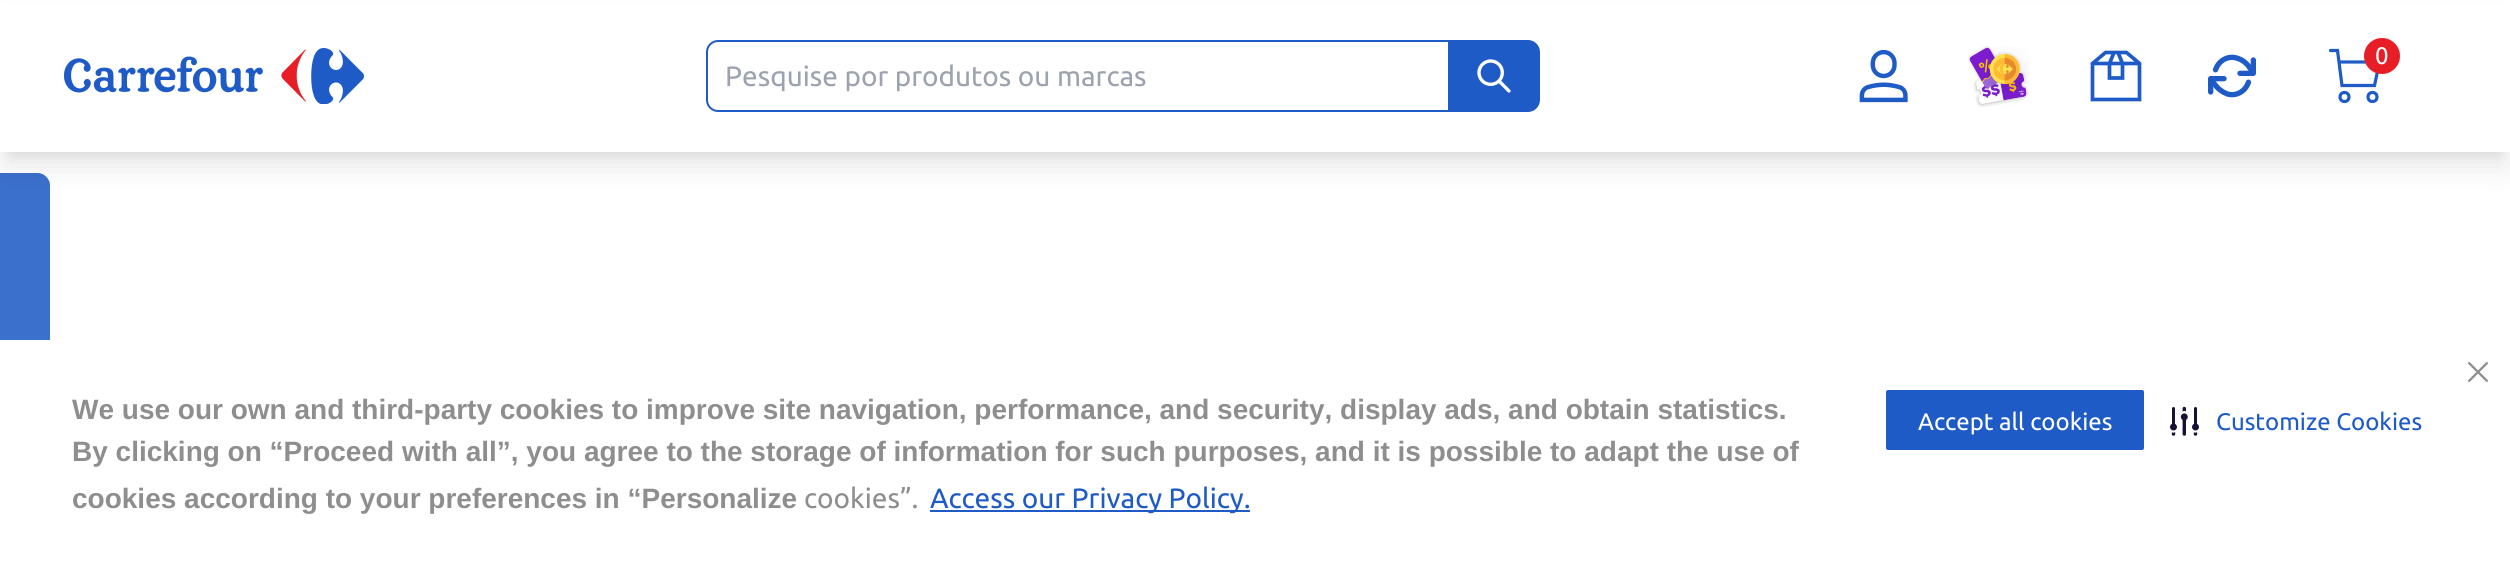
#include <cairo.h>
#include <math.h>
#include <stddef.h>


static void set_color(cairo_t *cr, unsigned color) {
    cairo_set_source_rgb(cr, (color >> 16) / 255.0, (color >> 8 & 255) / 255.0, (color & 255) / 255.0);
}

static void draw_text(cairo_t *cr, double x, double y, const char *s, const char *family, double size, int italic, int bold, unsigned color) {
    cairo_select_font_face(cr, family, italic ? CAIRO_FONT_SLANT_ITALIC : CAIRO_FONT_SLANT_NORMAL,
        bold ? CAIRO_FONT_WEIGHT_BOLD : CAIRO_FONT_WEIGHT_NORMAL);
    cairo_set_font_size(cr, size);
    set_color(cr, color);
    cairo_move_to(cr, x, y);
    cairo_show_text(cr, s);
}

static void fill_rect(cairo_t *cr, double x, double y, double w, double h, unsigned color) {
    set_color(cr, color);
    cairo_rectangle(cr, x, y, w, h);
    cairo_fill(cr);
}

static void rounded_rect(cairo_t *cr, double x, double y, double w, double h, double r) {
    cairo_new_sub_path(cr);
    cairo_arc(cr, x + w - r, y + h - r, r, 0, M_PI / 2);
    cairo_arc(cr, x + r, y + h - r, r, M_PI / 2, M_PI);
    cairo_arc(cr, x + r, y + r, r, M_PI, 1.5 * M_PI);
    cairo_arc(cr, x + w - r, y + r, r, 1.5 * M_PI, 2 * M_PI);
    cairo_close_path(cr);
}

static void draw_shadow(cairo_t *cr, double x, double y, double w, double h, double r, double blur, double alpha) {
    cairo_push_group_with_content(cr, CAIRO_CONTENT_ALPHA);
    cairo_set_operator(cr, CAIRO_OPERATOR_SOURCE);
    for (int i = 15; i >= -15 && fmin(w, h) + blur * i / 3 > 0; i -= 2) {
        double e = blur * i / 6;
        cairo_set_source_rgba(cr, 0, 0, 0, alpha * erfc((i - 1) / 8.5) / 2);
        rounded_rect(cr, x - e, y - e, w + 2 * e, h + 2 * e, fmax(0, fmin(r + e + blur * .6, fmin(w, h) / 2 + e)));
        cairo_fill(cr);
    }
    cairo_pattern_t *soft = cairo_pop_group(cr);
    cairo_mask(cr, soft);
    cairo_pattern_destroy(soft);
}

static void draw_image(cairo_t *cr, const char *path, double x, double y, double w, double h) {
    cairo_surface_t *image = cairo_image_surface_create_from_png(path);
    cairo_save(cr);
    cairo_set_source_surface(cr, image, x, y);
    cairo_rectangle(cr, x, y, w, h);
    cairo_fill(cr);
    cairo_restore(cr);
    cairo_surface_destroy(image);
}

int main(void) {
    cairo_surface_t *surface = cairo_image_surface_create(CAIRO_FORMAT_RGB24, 2510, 574);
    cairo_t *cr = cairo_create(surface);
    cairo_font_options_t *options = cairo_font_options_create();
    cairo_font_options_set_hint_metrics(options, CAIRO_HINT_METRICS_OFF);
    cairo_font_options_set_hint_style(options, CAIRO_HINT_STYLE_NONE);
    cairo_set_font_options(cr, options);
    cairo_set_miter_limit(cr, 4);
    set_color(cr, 0xFFFFFF);
    cairo_paint(cr);
    set_color(cr, 0x000000);
    draw_shadow(cr, 8, 16, 2494, 136, 0, 6, 0.1);
    set_color(cr, 0x3B70CD);
    cairo_new_path(cr);
    cairo_move_to(cr, -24, 475);
    cairo_line_to(cr, -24, 173);
    cairo_line_to(cr, 38, 173);
    cairo_curve_to(cr, 44, 173, 50, 179, 50, 185);
    cairo_line_to(cr, 50, 463);
    cairo_curve_to(cr, 50, 469, 44, 475, 38, 475);
    cairo_close_path(cr);
    cairo_fill(cr);
    set_color(cr, 0x000000);
    draw_shadow(cr, 6, 26, 2498, 140, 0, 15, 0.1);
    fill_rect(cr, 0, 4, 2510, 148, 0xFFFFFF);
    draw_image(cr, "assets/img1.png", 64, 48, 300, 56);
    cairo_new_path(cr);
    cairo_move_to(cr, 718, 41);
    cairo_line_to(cr, 1449, 41);
    cairo_line_to(cr, 1449, 111);
    cairo_line_to(cr, 718, 111);
    cairo_curve_to(cr, 712, 111, 707, 106, 707, 100);
    cairo_line_to(cr, 707, 52);
    cairo_curve_to(cr, 707, 46, 712, 41, 718, 41);
    cairo_close_path(cr);
    set_color(cr, 0x1E5BC6);
    cairo_stroke(cr);
    draw_text(cr, 725, 86, "Pesquise por produtos ou marcas", "Ubuntu", 28, 0, 0, 0x9CA3AF);
    set_color(cr, 0x1E5BC6);
    cairo_new_path(cr);
    cairo_move_to(cr, 1450, 40);
    cairo_line_to(cr, 1528, 40);
    cairo_curve_to(cr, 1534.5, 40, 1540, 45.5, 1540, 52);
    cairo_line_to(cr, 1540, 100);
    cairo_curve_to(cr, 1540, 106.5, 1534.5, 112, 1528, 112);
    cairo_line_to(cr, 1450, 112);
    cairo_close_path(cr);
    cairo_fill(cr);
    draw_image(cr, "assets/img2.png", 1477, 59, 34, 34);
    draw_image(cr, "assets/img3.png", 1859, 49, 49, 54);
    draw_image(cr, "assets/img4.png", 1968, 46, 61, 61);
    cairo_new_path(cr);
    cairo_move_to(cr, 2092.5, 63.5);
    cairo_line_to(cr, 2139.5, 63.5);
    cairo_move_to(cr, 2139.5, 63.5);
    cairo_line_to(cr, 2126.5, 52.5);
    cairo_line_to(cr, 2105.5, 52.5);
    cairo_line_to(cr, 2092.5, 63.5);
    cairo_line_to(cr, 2092.5, 99.5);
    cairo_line_to(cr, 2139.5, 99.5);
    cairo_close_path(cr);
    cairo_move_to(cr, 2122.5, 78);
    cairo_line_to(cr, 2109.5, 78);
    cairo_line_to(cr, 2109.5, 63.5);
    cairo_line_to(cr, 2114, 52.5);
    cairo_line_to(cr, 2118, 52.5);
    cairo_line_to(cr, 2122.5, 63.5);
    cairo_close_path(cr);
    cairo_set_line_width(cr, 3.7);
    cairo_stroke(cr);
    draw_image(cr, "assets/img5.png", 2208, 54, 48, 44);
    cairo_new_path(cr);
    cairo_move_to(cr, 2344.5, 101.5);
    cairo_curve_to(cr, 2350.5, 101.5, 2350.5, 92.5, 2344.5, 92.5);
    cairo_curve_to(cr, 2338.5, 92.5, 2338.5, 101.5, 2344.5, 101.5);
    cairo_close_path(cr);
    cairo_move_to(cr, 2372.5, 101.5);
    cairo_curve_to(cr, 2378.5, 101.5, 2378.5, 92.5, 2372.5, 92.5);
    cairo_curve_to(cr, 2366.5, 92.5, 2366.5, 101.5, 2372.5, 101.5);
    cairo_close_path(cr);
    cairo_move_to(cr, 2339, 62);
    cairo_line_to(cr, 2379.5, 62);
    cairo_line_to(cr, 2374.5, 85.5);
    cairo_line_to(cr, 2342, 85.5);
    cairo_line_to(cr, 2337.5, 50.5);
    cairo_line_to(cr, 2330.5, 50.5);
    cairo_set_line_width(cr, 3.2);
    cairo_set_line_cap(cr, CAIRO_LINE_CAP_ROUND);
    cairo_stroke(cr);
    set_color(cr, 0xE81E26);
    cairo_arc(cr, 2382, 56, 18, 0, 2 * M_PI);
    cairo_fill(cr);
    draw_text(cr, 2375, 64, "0", "Ubuntu", 24, 0, 0, 0xFFFFFF);
    fill_rect(cr, 0, 340, 50, 135, 0xFFFFFF);
    draw_text(cr, 72, 419, "We use our own and third-party cookies to improve site navigation, performance, and security, display ads, and obtain statistics.", "Liberation Sans", 28, 0, 1, 0x8E8E8E);
    draw_text(cr, 72, 461, "By clicking on “Proceed with all”, you agree to the storage of information for such purposes, and it is possible to adapt the use of", "Liberation Sans", 28, 0, 1, 0x8E8E8E);
    draw_text(cr, 72, 508, "cookies according to your preferences in “Personalize", "Liberation Sans", 28, 0, 1, 0x8E8E8E);
    draw_text(cr, 804, 508, "cookies”.", "Ubuntu", 28, 0, 0, 0x8E8E8E);
    fill_rect(cr, 930, 510, 320, 2, 0x1E5BC6);
    draw_text(cr, 930, 508, "Access our Privacy Policy.", "Ubuntu", 28, 0, 0, 0x1E5BC6);
    draw_image(cr, "assets/img6.png", 2468, 362, 20, 20);
    rounded_rect(cr, 1885, 389, 260, 62, 3);
    cairo_fill_preserve(cr);
    set_color(cr, 0xFFFFFF);
    cairo_set_line_width(cr, 2);
    cairo_set_line_cap(cr, CAIRO_LINE_CAP_BUTT);
    cairo_stroke(cr);
    draw_text(cr, 1918, 430, "Accept all cookies", "Ubuntu", 24, 0, 0, 0xFFFFFF);
    draw_image(cr, "assets/img7.png", 2170, 406, 29, 30);
    draw_text(cr, 2216, 430, "Customize Cookies", "Ubuntu", 24, 0, 0, 0x1E5BC6);
    cairo_surface_write_to_png(surface, "output.png");
    cairo_font_options_destroy(options);
    cairo_destroy(cr);
    cairo_surface_destroy(surface);
    return 0;
}
